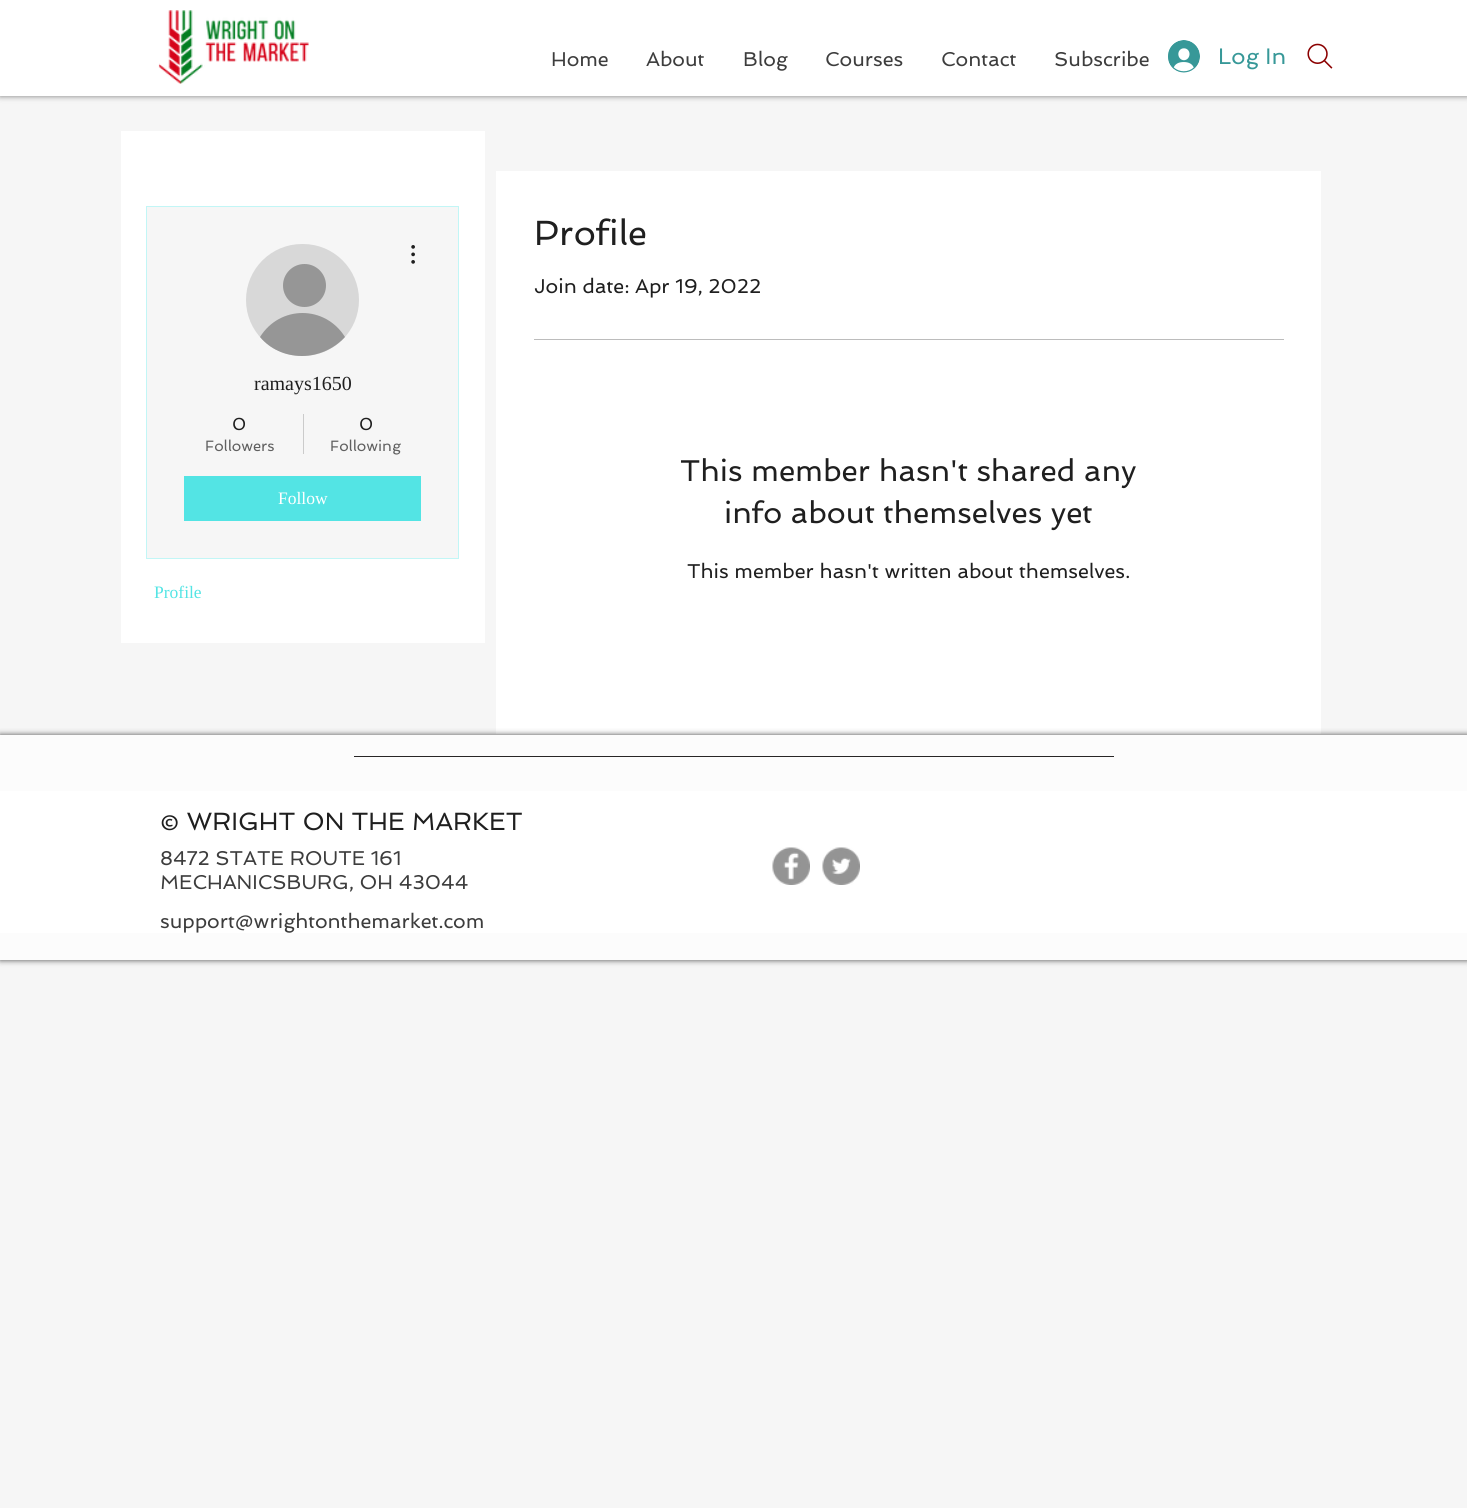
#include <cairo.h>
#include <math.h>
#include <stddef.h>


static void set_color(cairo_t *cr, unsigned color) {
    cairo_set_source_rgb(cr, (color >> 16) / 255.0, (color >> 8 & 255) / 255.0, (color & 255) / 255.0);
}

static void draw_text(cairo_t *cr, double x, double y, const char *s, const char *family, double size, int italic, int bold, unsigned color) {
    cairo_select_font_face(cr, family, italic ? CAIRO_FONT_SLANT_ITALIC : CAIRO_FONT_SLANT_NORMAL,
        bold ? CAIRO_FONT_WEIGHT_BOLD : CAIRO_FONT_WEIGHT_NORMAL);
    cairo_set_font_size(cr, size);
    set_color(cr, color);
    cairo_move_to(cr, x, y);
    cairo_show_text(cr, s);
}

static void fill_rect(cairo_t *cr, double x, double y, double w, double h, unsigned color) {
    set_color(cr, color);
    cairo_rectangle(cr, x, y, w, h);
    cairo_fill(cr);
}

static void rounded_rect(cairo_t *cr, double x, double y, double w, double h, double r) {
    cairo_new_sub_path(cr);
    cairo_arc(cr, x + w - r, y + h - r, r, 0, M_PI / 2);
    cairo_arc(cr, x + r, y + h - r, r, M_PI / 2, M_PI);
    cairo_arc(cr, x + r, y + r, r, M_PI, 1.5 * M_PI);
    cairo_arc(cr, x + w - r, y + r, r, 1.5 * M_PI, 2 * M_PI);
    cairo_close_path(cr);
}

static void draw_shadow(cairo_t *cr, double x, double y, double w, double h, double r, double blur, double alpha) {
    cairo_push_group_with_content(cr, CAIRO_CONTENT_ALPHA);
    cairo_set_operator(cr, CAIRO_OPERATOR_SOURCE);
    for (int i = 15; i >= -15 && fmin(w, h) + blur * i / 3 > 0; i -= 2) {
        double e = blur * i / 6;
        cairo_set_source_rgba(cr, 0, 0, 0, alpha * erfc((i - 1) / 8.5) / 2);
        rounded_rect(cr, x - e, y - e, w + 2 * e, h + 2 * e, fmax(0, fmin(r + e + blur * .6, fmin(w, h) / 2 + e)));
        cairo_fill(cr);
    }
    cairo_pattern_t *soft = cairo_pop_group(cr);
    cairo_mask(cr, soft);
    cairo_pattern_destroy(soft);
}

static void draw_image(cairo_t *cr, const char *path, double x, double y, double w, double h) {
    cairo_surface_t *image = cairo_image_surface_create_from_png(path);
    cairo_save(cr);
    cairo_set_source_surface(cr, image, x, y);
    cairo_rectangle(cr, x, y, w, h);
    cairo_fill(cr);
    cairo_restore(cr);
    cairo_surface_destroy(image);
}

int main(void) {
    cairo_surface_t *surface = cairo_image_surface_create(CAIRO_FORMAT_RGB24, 1467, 1508);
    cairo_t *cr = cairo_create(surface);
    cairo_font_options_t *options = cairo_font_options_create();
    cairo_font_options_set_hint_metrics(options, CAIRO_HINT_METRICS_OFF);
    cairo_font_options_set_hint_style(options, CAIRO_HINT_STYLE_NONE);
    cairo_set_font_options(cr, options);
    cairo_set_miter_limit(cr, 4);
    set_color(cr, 0xF6F6F6);
    cairo_paint(cr);
    set_color(cr, 0x000000);
    draw_shadow(cr, 0, 0, 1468, 96, 0, 3, 0.5);
    fill_rect(cr, 0, 0, 1467, 96, 0xFFFFFF);
    draw_image(cr, "assets/img1.png", 158, 10, 151, 74);
    draw_text(cr, 551, 66, "Home", "Spinnaker", 20, 0, 0, 0x3D3D3D);
    draw_text(cr, 646, 66, "About", "Spinnaker", 20, 0, 0, 0x3D3D3D);
    draw_text(cr, 743, 66, "Blog", "Spinnaker", 20, 0, 0, 0x3D3D3D);
    draw_text(cr, 825, 66, "Courses", "Spinnaker", 20, 0, 0, 0x3D3D3D);
    draw_text(cr, 941, 66, "Contact", "Spinnaker", 20, 0, 0, 0x3D3D3D);
    draw_text(cr, 1054, 66, "Subscribe", "Spinnaker", 20, 0, 0, 0x3D3D3D);
    draw_image(cr, "assets/img2.png", 1168, 40, 32, 33);
    draw_text(cr, 1218, 64, "Log In", "Spinnaker", 22.5, 0, 0, 0x379898);
    draw_image(cr, "assets/img3.png", 1307, 43, 26, 26);
    fill_rect(cr, 121, 131, 364, 512, 0xFFFFFF);
    set_color(cr, 0xF6F6F6);
    cairo_rectangle(cr, 146.5, 206.5, 312, 352);
    cairo_fill_preserve(cr);
    set_color(cr, 0xC2F6F6);
    cairo_set_line_width(cr, 1);
    cairo_stroke(cr);
    set_color(cr, 0xD8D8D8);
    rounded_rect(cr, 246, 244, 113, 112, 56);
    cairo_fill(cr);
    set_color(cr, 0x969696);
    cairo_arc(cr, 304.5, 285.5, 21.5, 0, 2 * M_PI);
    cairo_fill(cr);
    cairo_new_path(cr);
    cairo_move_to(cr, 302, 356);
    cairo_curve_to(cr, 318, 356, 334, 349, 345, 337);
    cairo_curve_to(cr, 325, 305, 280, 305, 260, 337);
    cairo_curve_to(cr, 270, 349, 285, 356, 302, 356);
    cairo_close_path(cr);
    cairo_fill(cr);
    draw_image(cr, "assets/img4.png", 411, 245, 4, 19);
    draw_text(cr, 254, 390, "ramays1650", "Liberation Serif", 20, 0, 0, 0x1F1F1F);
    draw_text(cr, 232, 430, "0", "Spinnaker", 17.5, 0, 0, 0x1F1F1F);
    draw_text(cr, 205, 451, "Followers", "Spinnaker", 15, 0, 0, 0x606060);
    fill_rect(cr, 303, 414, 1, 40, 0xCBCBCB);
    draw_text(cr, 359, 430, "0", "Spinnaker", 17.5, 0, 0, 0x1F1F1F);
    draw_text(cr, 330, 451, "Following", "Spinnaker", 15, 0, 0, 0x606060);
    fill_rect(cr, 184, 476, 237, 45, 0x53E4E4);
    draw_text(cr, 278, 504, "Follow", "Liberation Serif", 17.5, 0, 0, 0xFFFFFF);
    draw_text(cr, 154, 598, "Profile", "Liberation Serif", 17.5, 0, 0, 0x53E4E4);
    fill_rect(cr, 496, 171, 825, 563, 0xFFFFFF);
    draw_text(cr, 534, 245, "Profile", "Spinnaker", 35, 0, 0, 0x1F1F1F);
    draw_text(cr, 534, 293, "Join date: Apr 19, 2022", "Spinnaker", 20, 0, 0, 0x1F1F1F);
    fill_rect(cr, 534, 339, 750, 1, 0xBCBCBC);
    draw_text(cr, 680, 481, "This member hasn't shared any", "Spinnaker", 30, 0, 0, 0x1F1F1F);
    draw_text(cr, 724, 523, "info about themselves yet", "Spinnaker", 30, 0, 0, 0x1F1F1F);
    draw_text(cr, 687, 578, "This member hasn't written about themselves.", "Spinnaker", 20, 0, 0, 0x1F1F1F);
    set_color(cr, 0x000000);
    draw_shadow(cr, 0, 735, 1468, 225, 0, 3, 0.7);
    fill_rect(cr, 0, 735, 1467, 225, 0xFCFCFC);
    fill_rect(cr, 354, 756, 760, 1, 0x282626);
    fill_rect(cr, 0, 791, 1467, 142, 0xFFFFFF);
    draw_text(cr, 160, 830, "© WRIGHT ON THE MARKET", "Spinnaker", 25, 0, 0, 0x1F1F1F);
    draw_text(cr, 160, 865, "8472 STATE ROUTE 161", "Spinnaker", 20, 0, 0, 0x3D3D3D);
    draw_text(cr, 160, 889, "MECHANICSBURG, OH 43044", "Spinnaker", 20, 0, 0, 0x3D3D3D);
    draw_text(cr, 160, 928, "support@wrightonthemarket.com", "Spinnaker", 20, 0, 0, 0x3D3D3D);
    draw_image(cr, "assets/img5.png", 772, 847, 38, 38);
    draw_image(cr, "assets/img6.png", 822, 847, 38, 38);
    cairo_surface_write_to_png(surface, "output.png");
    cairo_font_options_destroy(options);
    cairo_destroy(cr);
    cairo_surface_destroy(surface);
    return 0;
}
